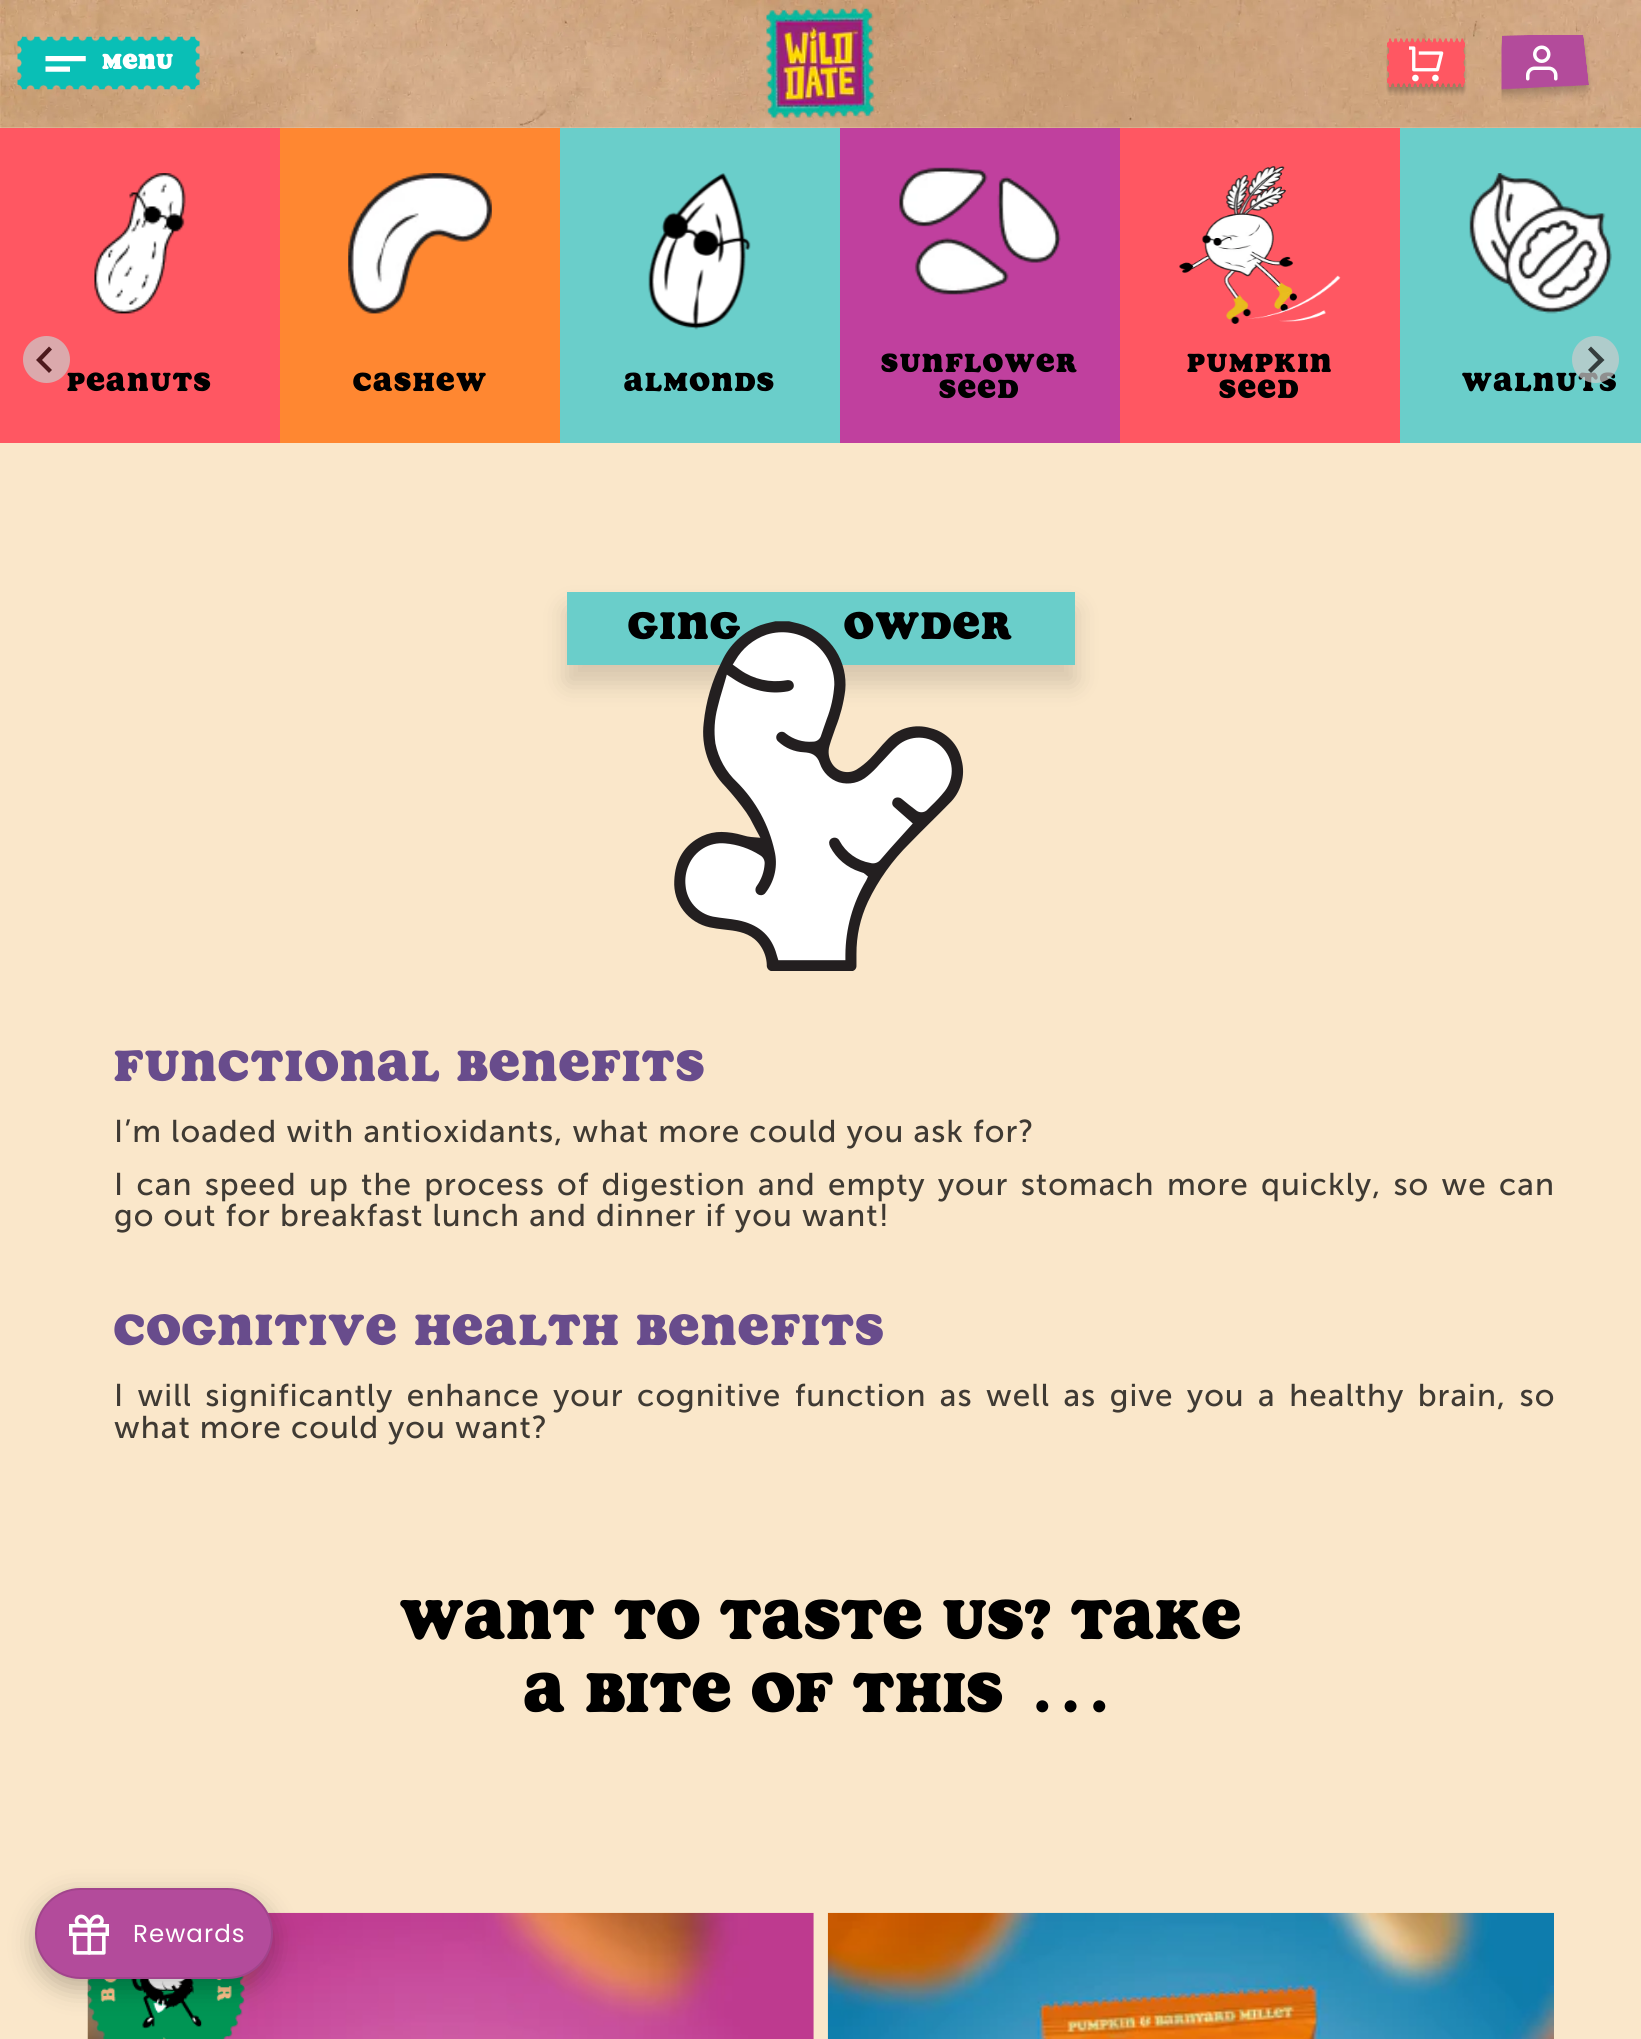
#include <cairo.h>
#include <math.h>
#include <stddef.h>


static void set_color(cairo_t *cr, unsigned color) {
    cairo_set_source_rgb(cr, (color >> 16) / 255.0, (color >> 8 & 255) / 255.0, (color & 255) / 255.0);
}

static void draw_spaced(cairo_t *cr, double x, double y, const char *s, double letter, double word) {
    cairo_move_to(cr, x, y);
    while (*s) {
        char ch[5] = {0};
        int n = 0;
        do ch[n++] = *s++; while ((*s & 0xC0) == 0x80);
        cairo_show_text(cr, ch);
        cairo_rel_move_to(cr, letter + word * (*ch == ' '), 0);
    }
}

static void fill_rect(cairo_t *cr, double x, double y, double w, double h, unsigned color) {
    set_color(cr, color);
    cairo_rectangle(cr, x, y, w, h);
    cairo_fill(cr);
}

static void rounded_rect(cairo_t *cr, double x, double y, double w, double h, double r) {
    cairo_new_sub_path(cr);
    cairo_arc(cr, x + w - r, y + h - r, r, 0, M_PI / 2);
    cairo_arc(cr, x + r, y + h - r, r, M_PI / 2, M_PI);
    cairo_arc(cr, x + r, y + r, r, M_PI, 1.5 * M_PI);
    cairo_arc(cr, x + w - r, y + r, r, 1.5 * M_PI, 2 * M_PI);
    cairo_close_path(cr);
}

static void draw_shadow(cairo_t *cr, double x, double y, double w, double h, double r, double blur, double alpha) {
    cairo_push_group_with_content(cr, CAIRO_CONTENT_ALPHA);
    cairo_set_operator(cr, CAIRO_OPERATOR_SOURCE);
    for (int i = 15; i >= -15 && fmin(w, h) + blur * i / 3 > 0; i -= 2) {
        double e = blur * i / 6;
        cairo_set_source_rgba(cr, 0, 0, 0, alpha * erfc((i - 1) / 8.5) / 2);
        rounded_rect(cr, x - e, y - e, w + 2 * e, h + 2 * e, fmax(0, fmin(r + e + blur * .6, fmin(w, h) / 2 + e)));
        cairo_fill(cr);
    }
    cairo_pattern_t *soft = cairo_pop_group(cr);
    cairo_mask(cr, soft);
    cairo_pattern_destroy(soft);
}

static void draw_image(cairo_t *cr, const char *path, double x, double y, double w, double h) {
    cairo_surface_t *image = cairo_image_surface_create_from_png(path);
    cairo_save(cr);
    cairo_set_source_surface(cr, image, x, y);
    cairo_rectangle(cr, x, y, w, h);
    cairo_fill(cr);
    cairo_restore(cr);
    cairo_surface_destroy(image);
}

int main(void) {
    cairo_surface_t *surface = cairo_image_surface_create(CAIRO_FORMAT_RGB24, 1641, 2039);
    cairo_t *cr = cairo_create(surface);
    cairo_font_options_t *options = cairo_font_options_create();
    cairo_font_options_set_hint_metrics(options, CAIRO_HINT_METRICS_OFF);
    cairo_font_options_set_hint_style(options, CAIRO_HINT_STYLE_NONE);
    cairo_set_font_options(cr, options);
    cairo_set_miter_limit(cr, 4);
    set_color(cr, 0xFAE7CA);
    cairo_paint(cr);
    draw_image(cr, "assets/img1.png", 0, 0, 1641, 128);
    draw_image(cr, "assets/img2.png", 17, 36, 183, 54);
    draw_image(cr, "assets/img3.png", 45, 56, 41, 16);
    cairo_select_font_face(cr, "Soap", CAIRO_FONT_SLANT_NORMAL, CAIRO_FONT_WEIGHT_BOLD);
    cairo_set_font_size(cr, 21);
    set_color(cr, 0xFFFFFF);
    draw_spaced(cr, 102, 69, "Menu", 1.05, 0);
    draw_image(cr, "assets/img4.png", 766, 8, 109, 111);
    draw_image(cr, "assets/img5.png", 1386, 38, 81, 58);
    draw_image(cr, "assets/img6.png", 1409, 46, 35, 36);
    draw_image(cr, "assets/img7.png", 1501, 35, 90, 68);
    draw_image(cr, "assets/img8.png", 1526, 45, 32, 36);
    fill_rect(cr, 0, 128, 280, 315, 0xFF5762);
    cairo_select_font_face(cr, "Soap", CAIRO_FONT_SLANT_NORMAL, CAIRO_FONT_WEIGHT_NORMAL);
    cairo_set_font_size(cr, 26.25);
    set_color(cr, 0x000000);
    draw_spaced(cr, 67, 391, "Peanuts", 1.75, 0);
    set_color(cr, 0xDBA9AC);
    cairo_new_path(cr);
    cairo_arc(cr, 46.5, 359.5, 23.5, 0, 2 * M_PI);
    cairo_fill(cr);
    set_color(cr, 0x4D1A1D);
    cairo_new_path(cr);
    cairo_move_to(cr, 49, 346.5);
    cairo_line_to(cr, 52, 349.5);
    cairo_line_to(cr, 42, 360);
    cairo_line_to(cr, 52, 370);
    cairo_line_to(cr, 49, 373);
    cairo_line_to(cr, 36, 360);
    cairo_close_path(cr);
    cairo_fill(cr);
    fill_rect(cr, 1400, 128, 241, 315, 0x6ACECA);
    set_color(cr, 0x000000);
    draw_spaced(cr, 1462, 391, "Walnuts", 1.75, 0);
    cairo_set_source_rgba(cr, 0.8, 0.8, 0.8, 0.7);
    cairo_new_path(cr);
    cairo_arc(cr, 1595.5, 359.5, 23.5, 0, 2 * M_PI);
    cairo_fill(cr);
    cairo_set_source_rgba(cr, 0, 0, 0, 0.7);
    cairo_new_path(cr);
    cairo_move_to(cr, 1591, 346.5);
    cairo_line_to(cr, 1588, 349.5);
    cairo_line_to(cr, 1598, 360);
    cairo_line_to(cr, 1588, 370);
    cairo_line_to(cr, 1591, 373);
    cairo_line_to(cr, 1604.5, 360);
    cairo_close_path(cr);
    cairo_fill(cr);
    draw_image(cr, "assets/img9.png", 94, 173, 92, 141);
    fill_rect(cr, 280, 128, 280, 315, 0xFF8731);
    draw_image(cr, "assets/img10.png", 348, 173, 144, 141);
    set_color(cr, 0x000000);
    draw_spaced(cr, 353, 391, "Cashew", 1.75, 0);
    fill_rect(cr, 560, 128, 280, 315, 0x6ACECA);
    draw_image(cr, "assets/img11.png", 648, 173, 103, 157);
    set_color(cr, 0x000000);
    draw_spaced(cr, 624, 391, "Almonds", 1.75, 0);
    fill_rect(cr, 840, 128, 280, 315, 0xC0409E);
    draw_image(cr, "assets/img12.png", 899, 167, 162, 128);
    set_color(cr, 0x000000);
    draw_spaced(cr, 881, 372, "Sunflower", 1.75, 0);
    draw_spaced(cr, 939, 398, "Seed", 1.75, 0);
    fill_rect(cr, 1120, 128, 280, 315, 0xFF5762);
    draw_image(cr, "assets/img13.png", 1179, 166, 162, 158);
    set_color(cr, 0x000000);
    draw_spaced(cr, 1187, 372, "Pumpkin", 1.75, 0);
    draw_spaced(cr, 1219, 398, "Seed", 1.75, 0);
    draw_image(cr, "assets/img14.png", 1469, 173, 143, 141);
    set_color(cr, 0x000000);
    draw_shadow(cr, 567, 609, 508, 74, 0, 13, 0.15);
    fill_rect(cr, 567, 592, 508, 73, 0x6ACECA);
    cairo_set_font_size(cr, 38.5);
    set_color(cr, 0x000000);
    draw_spaced(cr, 628, 639, "Ging", 1.75, 0);
    draw_spaced(cr, 844, 639, "owder", 1.75, 0);
    draw_image(cr, "assets/img15.png", 674, 621, 290, 350);
    cairo_set_font_size(cr, 43.75);
    set_color(cr, 0x684C8C);
    draw_spaced(cr, 114, 1081, "FUNCTIONAL BENEFITS", 1.75, 0);
    cairo_select_font_face(cr, "Museo Sans", CAIRO_FONT_SLANT_NORMAL, CAIRO_FONT_WEIGHT_NORMAL);
    cairo_set_font_size(cr, 31.5);
    set_color(cr, 0x3F3A33);
    draw_spaced(cr, 114, 1142, "I’m loaded with antioxidants, what more could you ask for?", 1.05, 0);
    draw_spaced(cr, 114, 1195, "I can speed up the process of digestion and empty your stomach more quickly, so we can", 1.05, 3.1);
    draw_spaced(cr, 114, 1226, "go out for breakfast lunch and dinner if you want!", 1.05, 0);
    cairo_select_font_face(cr, "Soap", CAIRO_FONT_SLANT_NORMAL, CAIRO_FONT_WEIGHT_NORMAL);
    cairo_set_font_size(cr, 43.75);
    set_color(cr, 0x684C8C);
    draw_spaced(cr, 114, 1345, "COGNITIVE HEALTH BENEFITS", 1.75, 0);
    cairo_select_font_face(cr, "Museo Sans", CAIRO_FONT_SLANT_NORMAL, CAIRO_FONT_WEIGHT_NORMAL);
    cairo_set_font_size(cr, 31.5);
    set_color(cr, 0x3F3A33);
    draw_spaced(cr, 114, 1406, "I will significantly enhance your cognitive function as well as give you a healthy brain, so", 1.05, 4.25);
    draw_spaced(cr, 114, 1438, "what more could you want?", 1.05, 0);
    cairo_select_font_face(cr, "Soap", CAIRO_FONT_SLANT_NORMAL, CAIRO_FONT_WEIGHT_NORMAL);
    cairo_set_font_size(cr, 56);
    set_color(cr, 0x000000);
    draw_spaced(cr, 400, 1639, "Want to taste us? Take", 1.05, 0);
    draw_spaced(cr, 524, 1712, "a bite of this …", 1.05, 0);
    draw_image(cr, "assets/img16.png", 87, 1912, 727, 127);
    draw_image(cr, "assets/img17.png", 87, 1975, 158, 64);
    draw_image(cr, "assets/img18.png", 827, 1912, 727, 127);
    set_color(cr, 0x000000);
    draw_shadow(cr, 35, 1897, 238, 91, 45.5, 13, 0.25);
    set_color(cr, 0xB34B9B);
    rounded_rect(cr, 35, 1888, 238, 91, 45.5);
    cairo_fill(cr);
    rounded_rect(cr, 36, 1889, 236, 89, 44.5);
    cairo_set_source_rgba(cr, 0, 0, 0, 0.1);
    cairo_stroke(cr);
    draw_image(cr, "assets/img19.png", 69, 1914, 40, 41);
    cairo_select_font_face(cr, "Poppins", CAIRO_FONT_SLANT_NORMAL, CAIRO_FONT_WEIGHT_NORMAL);
    cairo_set_font_size(cr, 24.5);
    set_color(cr, 0xFFFFFF);
    draw_spaced(cr, 133, 1942, "Rewards", 1.05, 0);
    cairo_surface_write_to_png(surface, "output.png");
    cairo_font_options_destroy(options);
    cairo_destroy(cr);
    cairo_surface_destroy(surface);
    return 0;
}
